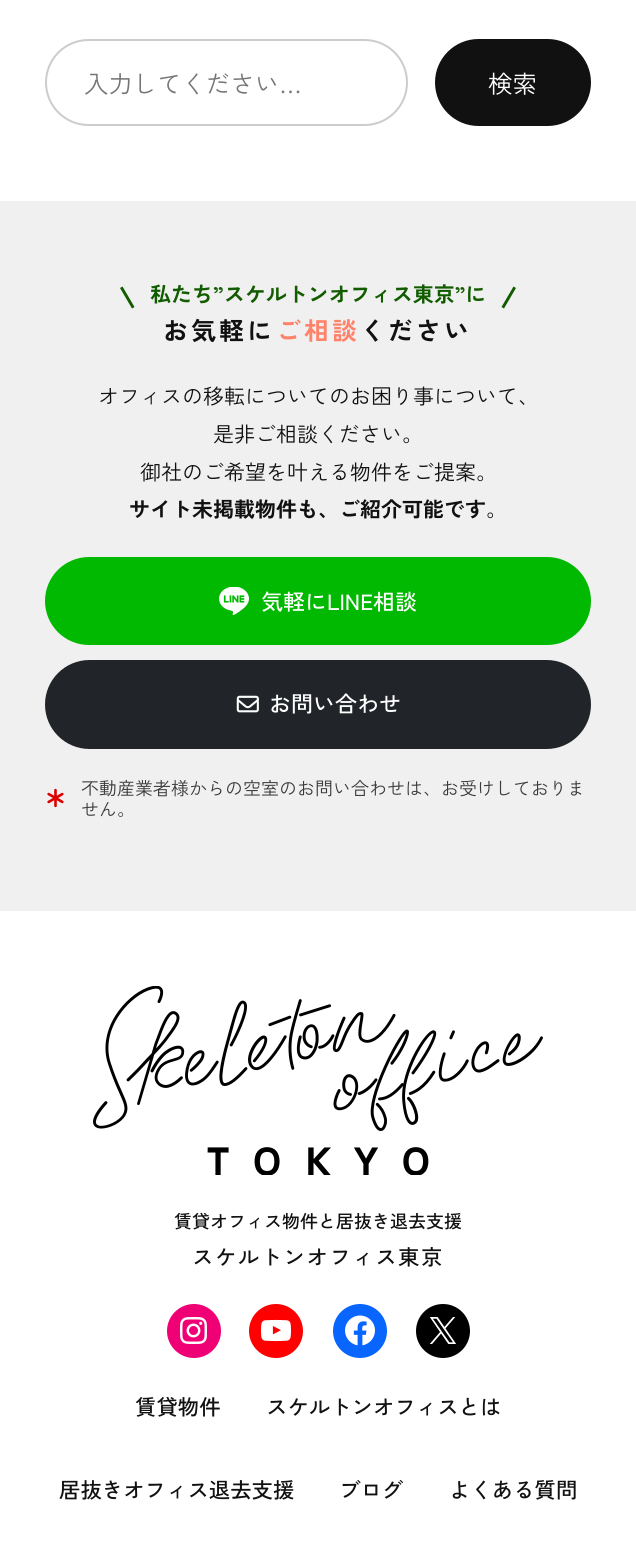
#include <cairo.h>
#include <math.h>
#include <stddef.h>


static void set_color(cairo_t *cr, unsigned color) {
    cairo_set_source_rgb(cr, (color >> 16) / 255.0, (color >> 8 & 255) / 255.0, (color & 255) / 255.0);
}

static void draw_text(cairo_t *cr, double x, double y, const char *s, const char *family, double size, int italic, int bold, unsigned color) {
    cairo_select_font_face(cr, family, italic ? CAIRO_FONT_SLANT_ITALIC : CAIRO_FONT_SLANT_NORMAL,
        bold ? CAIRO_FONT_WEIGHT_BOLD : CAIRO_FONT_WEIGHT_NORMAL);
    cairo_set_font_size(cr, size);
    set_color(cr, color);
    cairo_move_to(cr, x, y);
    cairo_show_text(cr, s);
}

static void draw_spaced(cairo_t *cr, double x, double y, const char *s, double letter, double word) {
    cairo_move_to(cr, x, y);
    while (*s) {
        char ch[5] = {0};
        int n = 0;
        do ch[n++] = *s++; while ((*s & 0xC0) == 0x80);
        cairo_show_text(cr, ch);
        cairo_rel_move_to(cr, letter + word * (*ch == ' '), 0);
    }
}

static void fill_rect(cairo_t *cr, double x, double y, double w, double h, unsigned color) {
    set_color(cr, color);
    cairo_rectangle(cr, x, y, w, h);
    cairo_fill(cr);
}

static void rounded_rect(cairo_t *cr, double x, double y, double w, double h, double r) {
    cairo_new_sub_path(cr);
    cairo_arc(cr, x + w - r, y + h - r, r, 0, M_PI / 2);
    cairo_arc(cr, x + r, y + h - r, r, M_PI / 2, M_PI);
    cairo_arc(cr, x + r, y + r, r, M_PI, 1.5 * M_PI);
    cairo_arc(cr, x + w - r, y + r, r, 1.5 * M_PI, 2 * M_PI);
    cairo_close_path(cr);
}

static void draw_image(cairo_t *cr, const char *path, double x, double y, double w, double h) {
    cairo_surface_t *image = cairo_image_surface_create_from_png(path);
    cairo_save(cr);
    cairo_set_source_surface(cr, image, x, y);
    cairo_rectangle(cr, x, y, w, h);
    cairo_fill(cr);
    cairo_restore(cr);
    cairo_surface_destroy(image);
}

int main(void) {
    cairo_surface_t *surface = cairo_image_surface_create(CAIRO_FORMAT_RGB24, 636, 1560);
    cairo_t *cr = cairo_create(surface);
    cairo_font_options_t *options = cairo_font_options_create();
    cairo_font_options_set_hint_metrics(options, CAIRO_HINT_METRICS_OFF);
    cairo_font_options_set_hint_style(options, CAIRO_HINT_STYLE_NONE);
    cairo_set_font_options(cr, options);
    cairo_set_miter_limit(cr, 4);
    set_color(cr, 0xFFFFFF);
    cairo_paint(cr);
    rounded_rect(cr, 46, 40, 361, 85, 42.5);
    set_color(cr, 0xCCCCCC);
    cairo_stroke(cr);
    draw_text(cr, 84, 93, "入力してください…", "Zen Kaku Gothic New", 24.4, 0, 0, 0x757575);
    set_color(cr, 0x111111);
    rounded_rect(cr, 435, 39, 156, 87, 43.5);
    cairo_fill(cr);
    draw_text(cr, 488, 93, "検索", "Zen Kaku Gothic New", 24.4, 0, 0, 0xFFFFFF);
    fill_rect(cr, 0, 201, 636, 710, 0xF0F0F0);
    set_color(cr, 0x125C00);
    cairo_new_path(cr);
    cairo_move_to(cr, 120, 288);
    cairo_line_to(cr, 122.5, 286.5);
    cairo_line_to(cr, 134.5, 307);
    cairo_line_to(cr, 132, 308.5);
    cairo_close_path(cr);
    cairo_fill(cr);
    draw_text(cr, 150, 302, "私たち”スケルトンオフィス東京”に", "Zen Kaku Gothic New", 21, 0, 1, 0x125C00);
    cairo_new_path(cr);
    cairo_move_to(cr, 513.5, 286.5);
    cairo_line_to(cr, 516, 288);
    cairo_line_to(cr, 504, 308.5);
    cairo_line_to(cr, 501.5, 307);
    cairo_close_path(cr);
    cairo_fill(cr);
    cairo_set_font_size(cr, 25);
    set_color(cr, 0x111111);
    draw_spaced(cr, 163, 340, "お気軽に", 3, 0);
    set_color(cr, 0xFF836B);
    draw_spaced(cr, 276, 340, "ご相談", 3, 0);
    set_color(cr, 0x111111);
    draw_spaced(cr, 360, 340, "ください", 3, 0);
    draw_text(cr, 98, 404, "オフィスの移転についてのお困り事について、", "Zen Kaku Gothic New", 21, 0, 0, 0x111111);
    draw_text(cr, 213, 442, "是非ご相談ください。", "Zen Kaku Gothic New", 21, 0, 0, 0x111111);
    draw_text(cr, 140, 480, "御社のご希望を叶える物件をご提案。", "Zen Kaku Gothic New", 21, 0, 0, 0x111111);
    draw_text(cr, 129, 517, "サイト未掲載物件も、ご紹介可能です", "Zen Kaku Gothic New", 21, 0, 1, 0x111111);
    draw_text(cr, 486, 517, "。", "Zen Kaku Gothic New", 21, 0, 0, 0x111111);
    set_color(cr, 0x00B900);
    rounded_rect(cr, 45, 557, 546, 88, 44);
    cairo_fill(cr);
    draw_image(cr, "assets/img1.png", 219, 587, 30, 28);
    draw_text(cr, 261, 610, "気軽にLINE相談", "Zen Kaku Gothic New Medium", 22, 0, 0, 0xFFFFFF);
    set_color(cr, 0x212529);
    rounded_rect(cr, 45, 660, 546, 89, 44.5);
    cairo_fill(cr);
    draw_image(cr, "assets/img2.png", 236, 695, 23, 18);
    draw_text(cr, 269, 712, "お問い合わせ", "Zen Kaku Gothic New Medium", 22, 0, 0, 0xFFFFFF);
    draw_image(cr, "assets/img3.png", 47, 788, 17, 20);
    draw_text(cr, 81, 795, "不動産業者様からの空室のお問い合わせは、お受けしておりま", "Zen Kaku Gothic New", 18, 0, 0, 0x3A3A3A);
    draw_text(cr, 81, 816, "せん。", "Zen Kaku Gothic New", 18, 0, 0, 0x3A3A3A);
    draw_image(cr, "assets/img4.png", 93, 986, 450, 189);
    draw_text(cr, 174, 1228, "賃貸オフィス物件と居抜き退去支援", "Zen Kaku Gothic New Medium", 18, 0, 0, 0x111111);
    cairo_set_font_size(cr, 21.4);
    draw_spaced(cr, 192, 1265, "スケルトンオフィス東京", 1.5, 0);
    set_color(cr, 0xF00075);
    cairo_new_path(cr);
    cairo_arc(cr, 194, 1331, 27, 0, 2 * M_PI);
    cairo_fill(cr);
    draw_image(cr, "assets/img5.png", 180, 1317, 27, 27);
    set_color(cr, 0xFF0000);
    cairo_arc(cr, 276, 1331, 27, 0, 2 * M_PI);
    cairo_fill(cr);
    draw_image(cr, "assets/img6.png", 261, 1319, 30, 23);
    set_color(cr, 0x0866FF);
    cairo_arc(cr, 360, 1331, 27, 0, 2 * M_PI);
    cairo_fill(cr);
    draw_image(cr, "assets/img7.png", 345, 1315, 30, 31);
    set_color(cr, 0x000000);
    cairo_arc(cr, 443, 1331, 27, 0, 2 * M_PI);
    cairo_fill(cr);
    draw_image(cr, "assets/img8.png", 429, 1317, 28, 27);
    draw_text(cr, 135, 1415, "賃貸物件", "Zen Kaku Gothic New Medium", 21.4, 0, 0, 0x111111);
    draw_text(cr, 266, 1415, "スケルトンオフィスとは", "Zen Kaku Gothic New Medium", 21.4, 0, 0, 0x111111);
    draw_text(cr, 59, 1498, "居抜きオフィス退去支援", "Zen Kaku Gothic New Medium", 21.4, 0, 0, 0x111111);
    draw_text(cr, 339, 1498, "ブログ", "Zen Kaku Gothic New Medium", 21.4, 0, 0, 0x111111);
    draw_text(cr, 449, 1498, "よくある質問", "Zen Kaku Gothic New Medium", 21.4, 0, 0, 0x111111);
    cairo_surface_write_to_png(surface, "output.png");
    cairo_font_options_destroy(options);
    cairo_destroy(cr);
    cairo_surface_destroy(surface);
    return 0;
}
